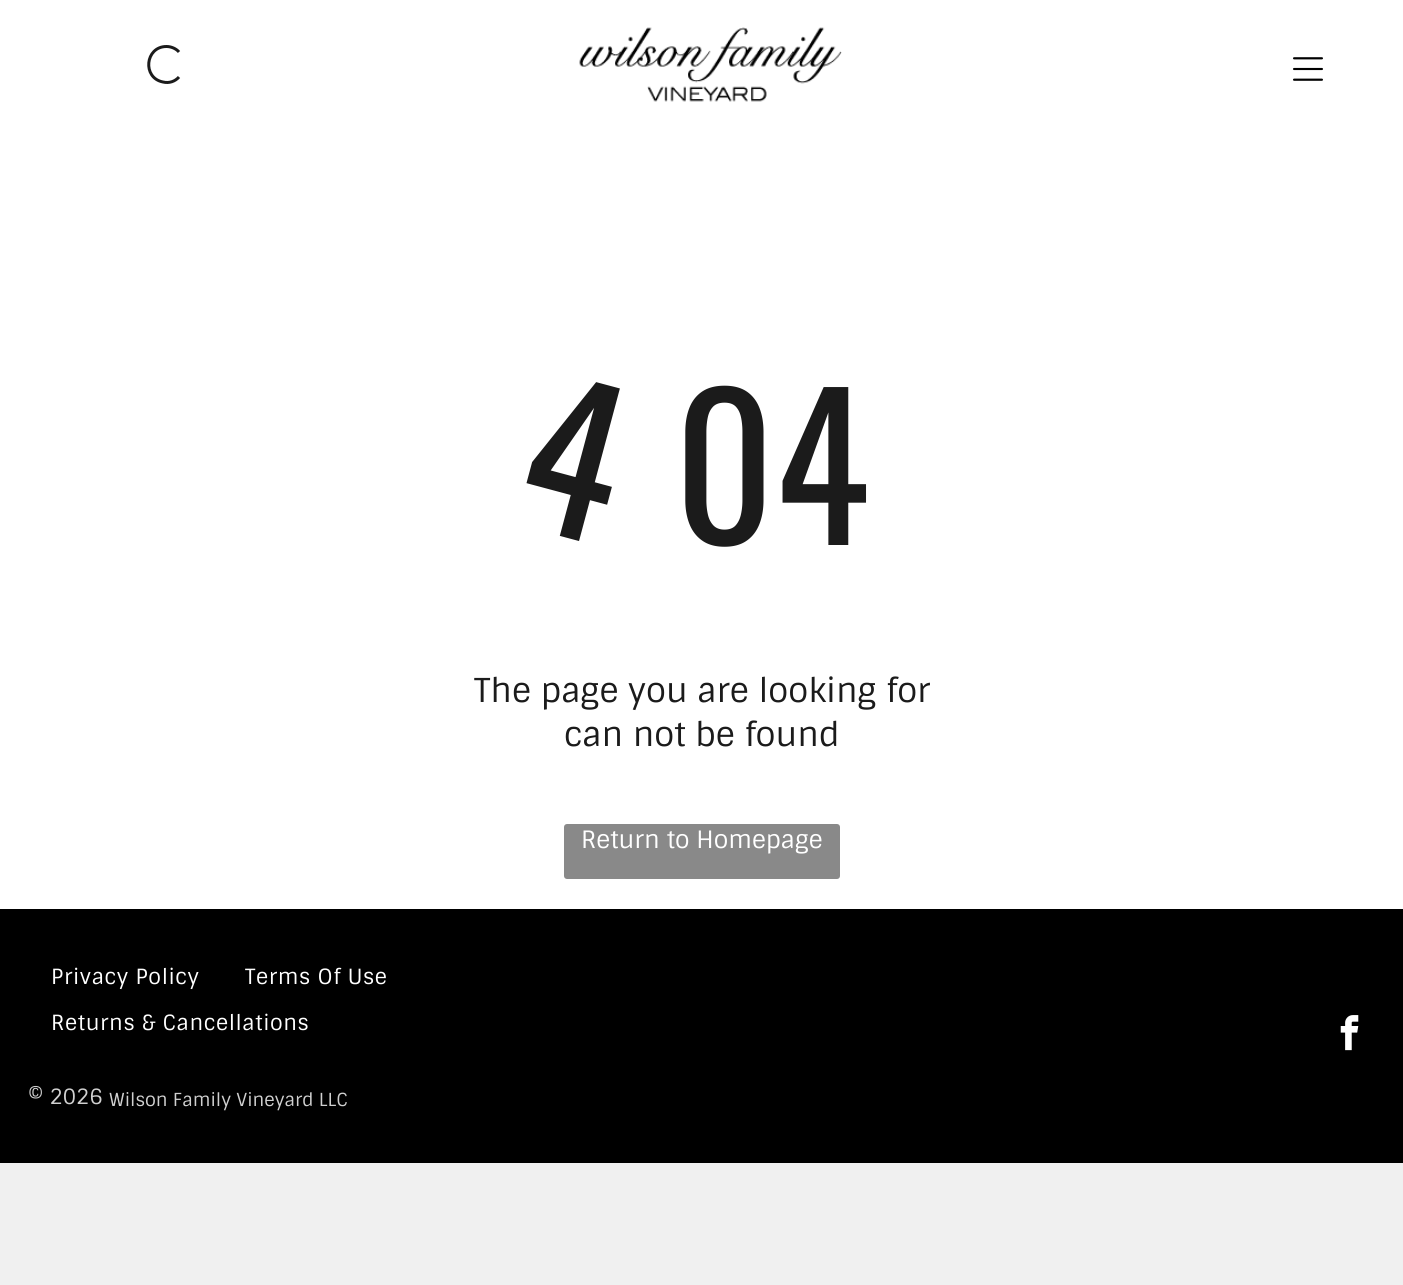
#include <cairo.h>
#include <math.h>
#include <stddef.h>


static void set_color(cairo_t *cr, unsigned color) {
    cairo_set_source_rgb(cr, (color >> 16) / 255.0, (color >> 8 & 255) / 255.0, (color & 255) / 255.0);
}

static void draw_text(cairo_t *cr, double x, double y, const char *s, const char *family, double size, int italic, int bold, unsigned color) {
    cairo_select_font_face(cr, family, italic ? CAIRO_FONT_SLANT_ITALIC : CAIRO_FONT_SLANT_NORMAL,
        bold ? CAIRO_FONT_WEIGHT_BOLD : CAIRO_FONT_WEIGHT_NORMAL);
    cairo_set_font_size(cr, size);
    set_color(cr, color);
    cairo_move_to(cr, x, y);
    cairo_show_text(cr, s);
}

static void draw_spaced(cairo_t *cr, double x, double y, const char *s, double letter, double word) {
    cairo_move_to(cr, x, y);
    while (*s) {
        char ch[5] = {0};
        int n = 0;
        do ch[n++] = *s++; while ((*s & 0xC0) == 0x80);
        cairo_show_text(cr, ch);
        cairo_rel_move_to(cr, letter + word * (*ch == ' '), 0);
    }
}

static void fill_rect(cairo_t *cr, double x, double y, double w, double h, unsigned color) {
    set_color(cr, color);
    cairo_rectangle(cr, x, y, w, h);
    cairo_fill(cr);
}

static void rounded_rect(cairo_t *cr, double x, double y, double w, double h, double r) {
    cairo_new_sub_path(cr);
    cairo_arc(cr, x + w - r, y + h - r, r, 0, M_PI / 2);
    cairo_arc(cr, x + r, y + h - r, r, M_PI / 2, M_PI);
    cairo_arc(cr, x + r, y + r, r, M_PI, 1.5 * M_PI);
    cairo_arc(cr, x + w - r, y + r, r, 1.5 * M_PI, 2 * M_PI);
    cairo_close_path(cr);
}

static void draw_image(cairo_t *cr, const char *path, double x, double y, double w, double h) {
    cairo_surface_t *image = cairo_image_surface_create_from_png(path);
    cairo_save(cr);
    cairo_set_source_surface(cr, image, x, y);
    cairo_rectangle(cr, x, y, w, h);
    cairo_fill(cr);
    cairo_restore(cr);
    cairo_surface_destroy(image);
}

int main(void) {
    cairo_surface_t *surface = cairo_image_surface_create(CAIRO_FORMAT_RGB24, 1403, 1285);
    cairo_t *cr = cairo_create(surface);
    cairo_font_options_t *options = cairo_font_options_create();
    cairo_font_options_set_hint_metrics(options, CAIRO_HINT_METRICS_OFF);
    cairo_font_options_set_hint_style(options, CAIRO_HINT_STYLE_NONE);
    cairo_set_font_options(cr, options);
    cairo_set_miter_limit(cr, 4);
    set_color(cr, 0xF0F0F0);
    cairo_paint(cr);
    fill_rect(cr, 0, 0, 1403, 909, 0xFFFFFF);
    cairo_new_path(cr);
    cairo_move_to(cr, 179, 77);
    cairo_curve_to(cr, 175, 81.5, 169, 83.5, 163, 82);
    cairo_curve_to(cr, 142, 78, 145, 46.5, 166.5, 46.5);
    cairo_curve_to(cr, 171, 46.5, 176, 48.5, 179, 52);
    set_color(cr, 0x1B1B1B);
    cairo_set_line_width(cr, 3);
    cairo_stroke(cr);
    draw_image(cr, "assets/img1.png", 579, 27, 263, 75);
    draw_image(cr, "assets/img2.png", 1293, 57, 30, 24);
    cairo_save(cr);
    cairo_translate(cr, 508, 522);
    cairo_rotate(cr, 15 * M_PI / 180);
    draw_text(cr, 0, 0, "4", "Oswald", 195, 0, 0, 0x1B1B1B);
    cairo_restore(cr);
    draw_text(cr, 674, 545, "04", "Oswald", 195, 0, 0, 0x1B1B1B);
    draw_text(cr, 474, 702, "The page you are looking for", "Sintony", 33, 0, 0, 0x1B1B1B);
    draw_text(cr, 564, 746, "can not be found", "Sintony", 33, 0, 0, 0x1B1B1B);
    set_color(cr, 0x898989);
    rounded_rect(cr, 564, 824, 276, 55, 3);
    cairo_fill(cr);
    draw_text(cr, 581, 848, "Return to Homepage", "Sintony", 24, 0, 0, 0xFFFFFF);
    fill_rect(cr, 0, 909, 1403, 254, 0x000000);
    cairo_set_font_size(cr, 21);
    set_color(cr, 0xFFFFFF);
    draw_spaced(cr, 51, 984, "Privacy Policy", 0.6, 0);
    draw_spaced(cr, 245, 984, "Terms Of Use", 0.6, 0);
    draw_spaced(cr, 51, 1030, "Returns & Cancellations", 0.6, 0);
    draw_text(cr, 28, 1104, "© 2026", "Sintony", 21, 0, 0, 0xD0D0D0);
    draw_text(cr, 109, 1106, "Wilson Family Vineyard LLC", "Sintony", 18, 0, 0, 0xD0D0D0);
    draw_image(cr, "assets/img3.png", 1340, 1015, 19, 36);
    cairo_surface_write_to_png(surface, "output.png");
    cairo_font_options_destroy(options);
    cairo_destroy(cr);
    cairo_surface_destroy(surface);
    return 0;
}
